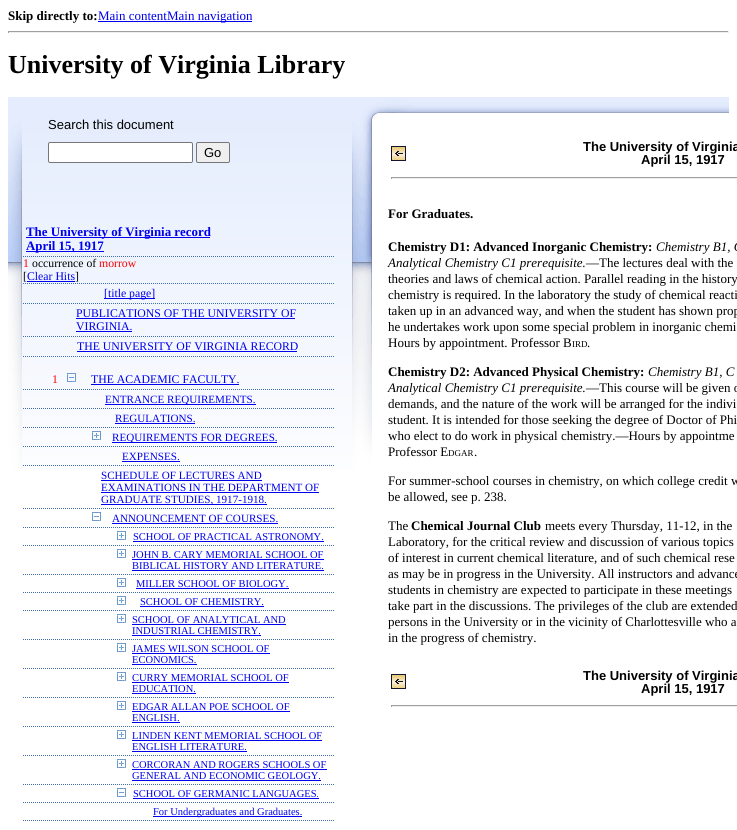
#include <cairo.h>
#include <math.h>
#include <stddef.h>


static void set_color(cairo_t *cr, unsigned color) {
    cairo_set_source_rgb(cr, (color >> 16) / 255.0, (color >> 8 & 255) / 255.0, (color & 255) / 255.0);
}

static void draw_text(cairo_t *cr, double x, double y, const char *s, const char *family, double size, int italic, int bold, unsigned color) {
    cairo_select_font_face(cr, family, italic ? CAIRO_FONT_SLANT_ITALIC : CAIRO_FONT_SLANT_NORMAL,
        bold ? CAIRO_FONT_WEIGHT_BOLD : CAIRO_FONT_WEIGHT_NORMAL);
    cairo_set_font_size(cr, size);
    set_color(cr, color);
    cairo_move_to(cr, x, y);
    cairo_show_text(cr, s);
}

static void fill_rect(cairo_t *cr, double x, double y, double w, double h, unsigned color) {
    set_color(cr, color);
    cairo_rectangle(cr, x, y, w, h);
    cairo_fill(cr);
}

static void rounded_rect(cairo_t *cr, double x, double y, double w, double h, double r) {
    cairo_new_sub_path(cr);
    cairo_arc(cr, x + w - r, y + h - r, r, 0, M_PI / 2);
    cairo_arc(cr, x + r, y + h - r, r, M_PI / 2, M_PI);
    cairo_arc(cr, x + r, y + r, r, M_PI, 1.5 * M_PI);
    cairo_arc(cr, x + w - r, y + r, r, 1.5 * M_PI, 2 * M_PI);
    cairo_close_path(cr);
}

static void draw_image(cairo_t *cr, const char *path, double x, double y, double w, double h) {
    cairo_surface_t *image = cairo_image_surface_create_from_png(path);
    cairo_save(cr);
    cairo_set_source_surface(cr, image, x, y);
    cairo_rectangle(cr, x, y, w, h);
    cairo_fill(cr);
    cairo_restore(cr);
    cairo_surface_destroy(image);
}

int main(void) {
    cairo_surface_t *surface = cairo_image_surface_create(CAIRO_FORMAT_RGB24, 737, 830);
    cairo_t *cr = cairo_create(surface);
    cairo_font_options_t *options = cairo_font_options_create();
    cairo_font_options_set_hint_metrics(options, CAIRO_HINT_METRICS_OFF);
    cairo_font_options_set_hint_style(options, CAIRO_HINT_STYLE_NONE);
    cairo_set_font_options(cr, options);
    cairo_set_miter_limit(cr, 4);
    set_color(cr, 0xFFFFFF);
    cairo_paint(cr);
    draw_text(cr, 8, 20, "Skip directly to:", "Liberation Serif", 13, 0, 1, 0x000000);
    fill_rect(cr, 98, 21, 154, 1, 0x0000EE);
    draw_text(cr, 98, 20, "Main contentMain navigation", "Liberation Serif", 13, 0, 0, 0x0000EE);
    fill_rect(cr, 8, 31, 721, 1, 0x9F9F9F);
    fill_rect(cr, 728, 31, 1, 2, 0xEEEEEE);
    fill_rect(cr, 8, 32, 721, 1, 0xEEEEEE);
    fill_rect(cr, 8, 31, 1, 2, 0x9F9F9F);
    draw_text(cr, 8, 73, "University of Virginia Library", "Liberation Serif", 26, 0, 1, 0x000000);
    draw_image(cr, "assets/img1.png", 8, 97, 721, 372);
    draw_text(cr, 48, 129, "Search this document", "Liberation Sans", 13, 0, 0, 0x000000);
    set_color(cr, 0xFFFFFF);
    rounded_rect(cr, 48.5, 142.5, 144, 20, 1.5);
    cairo_fill_preserve(cr);
    set_color(cr, 0x767676);
    cairo_set_line_width(cr, 1);
    cairo_stroke(cr);
    set_color(cr, 0xEFEFEF);
    rounded_rect(cr, 196.5, 142.5, 33, 20, 1.5);
    cairo_fill_preserve(cr);
    set_color(cr, 0x767676);
    cairo_stroke(cr);
    draw_text(cr, 204, 157, "Go", "Liberation Sans", 13, 0, 0, 0x000000);
    fill_rect(cr, 26, 237, 184, 1, 0x0000EE);
    draw_text(cr, 26, 236, "The University of Virginia record", "Liberation Serif", 12.9, 0, 1, 0x0000EE);
    fill_rect(cr, 26, 251, 78, 1, 0x0000EE);
    draw_text(cr, 26, 250, "April 15, 1917", "Liberation Serif", 12.9, 0, 1, 0x0000EE);
    cairo_new_path(cr);
    cairo_move_to(cr, 23, 256.5);
    cairo_line_to(cr, 334, 256.5);
    set_color(cr, 0x3F6DAD);
    cairo_set_dash(cr, (double[]){1, 1}, 2, 0);
    cairo_stroke(cr);
    cairo_new_path(cr);
    cairo_move_to(cr, 23, 283.5);
    cairo_line_to(cr, 334, 283.5);
    cairo_stroke(cr);
    draw_text(cr, 23, 267, "1", "Liberation Serif", 11.75, 0, 0, 0xFF0000);
    draw_text(cr, 32, 267, "occurrence of", "Liberation Serif", 11.75, 0, 0, 0x000000);
    draw_text(cr, 99, 267, "morrow", "Liberation Serif", 11.75, 0, 0, 0xFF0000);
    draw_text(cr, 23, 280, "[", "Liberation Serif", 11.75, 0, 0, 0x000000);
    draw_text(cr, 27, 280, "Clear Hits", "Liberation Serif", 11.75, 0, 0, 0x0000EE);
    fill_rect(cr, 27, 281, 48, 1, 0x0000EE);
    draw_text(cr, 75, 280, "]", "Liberation Serif", 11.75, 0, 0, 0x000000);
    cairo_new_path(cr);
    cairo_move_to(cr, 23, 303.5);
    cairo_line_to(cr, 334, 303.5);
    set_color(cr, 0x3F6DAD);
    cairo_stroke(cr);
    fill_rect(cr, 104, 298, 51, 1, 0x0000EE);
    draw_text(cr, 104, 297, "[title page]", "Liberation Serif", 11.75, 0, 0, 0x0000EE);
    cairo_new_path(cr);
    cairo_move_to(cr, 23, 336.5);
    cairo_line_to(cr, 334, 336.5);
    set_color(cr, 0x3F6DAD);
    cairo_stroke(cr);
    draw_text(cr, 76, 317, "PUBLICATIONS OF THE UNIVERSITY OF", "Liberation Serif", 11.75, 0, 0, 0x0000EE);
    fill_rect(cr, 76, 318, 219, 1, 0x0000EE);
    draw_text(cr, 76, 330, "VIRGINIA.", "Liberation Serif", 11.75, 0, 0, 0x0000EE);
    fill_rect(cr, 76, 331, 56, 1, 0x0000EE);
    cairo_new_path(cr);
    cairo_move_to(cr, 23, 356.5);
    cairo_line_to(cr, 334, 356.5);
    set_color(cr, 0x3F6DAD);
    cairo_stroke(cr);
    draw_text(cr, 77, 350, "THE UNIVERSITY OF VIRGINIA RECORD", "Liberation Serif", 11.75, 0, 0, 0x0000EE);
    fill_rect(cr, 77, 351, 220, 1, 0x0000EE);
    cairo_new_path(cr);
    cairo_move_to(cr, 23, 389.5);
    cairo_line_to(cr, 334, 389.5);
    set_color(cr, 0x3F6DAD);
    cairo_stroke(cr);
    draw_text(cr, 52, 383, "1", "Liberation Serif", 11.75, 0, 0, 0xFF0000);
    draw_image(cr, "assets/img2.png", 67, 373, 9, 9);
    draw_text(cr, 91, 383, "THE ACADEMIC FACULTY.", "Liberation Serif", 11.75, 0, 0, 0x0000EE);
    fill_rect(cr, 91, 384, 148, 1, 0x0000EE);
    cairo_new_path(cr);
    cairo_move_to(cr, 23, 408.5);
    cairo_line_to(cr, 334, 408.5);
    set_color(cr, 0x3F6DAD);
    cairo_stroke(cr);
    fill_rect(cr, 105, 404, 151, 1, 0x0000EE);
    draw_text(cr, 105, 403, "ENTRANCE REQUIREMENTS.", "Liberation Serif", 11.1, 0, 0, 0x0000EE);
    cairo_new_path(cr);
    cairo_move_to(cr, 23, 427.5);
    cairo_line_to(cr, 334, 427.5);
    set_color(cr, 0x3F6DAD);
    cairo_stroke(cr);
    draw_text(cr, 115, 422, "REGULATIONS.", "Liberation Serif", 11.1, 0, 0, 0x0000EE);
    fill_rect(cr, 115, 423, 80, 1, 0x0000EE);
    cairo_new_path(cr);
    cairo_move_to(cr, 23, 446.5);
    cairo_line_to(cr, 334, 446.5);
    set_color(cr, 0x3F6DAD);
    cairo_stroke(cr);
    draw_image(cr, "assets/img3.png", 92, 431, 9, 9);
    fill_rect(cr, 112, 442, 165, 1, 0x0000EE);
    draw_text(cr, 112, 441, "REQUIREMENTS FOR DEGREES.", "Liberation Serif", 11.1, 0, 0, 0x0000EE);
    cairo_new_path(cr);
    cairo_move_to(cr, 23, 465.5);
    cairo_line_to(cr, 334, 465.5);
    set_color(cr, 0x3F6DAD);
    cairo_stroke(cr);
    draw_text(cr, 122, 460, "EXPENSES.", "Liberation Serif", 11.1, 0, 0, 0x0000EE);
    fill_rect(cr, 122, 461, 58, 1, 0x0000EE);
    cairo_new_path(cr);
    cairo_move_to(cr, 23, 508.5);
    cairo_line_to(cr, 334, 508.5);
    set_color(cr, 0x3F6DAD);
    cairo_stroke(cr);
    draw_text(cr, 101, 479, "SCHEDULE OF LECTURES AND", "Liberation Serif", 11.1, 0, 0, 0x0000EE);
    fill_rect(cr, 101, 480, 161, 1, 0x0000EE);
    draw_text(cr, 101, 491, "EXAMINATIONS IN THE DEPARTMENT OF", "Liberation Serif", 11.1, 0, 0, 0x0000EE);
    fill_rect(cr, 101, 492, 218, 1, 0x0000EE);
    fill_rect(cr, 101, 504, 166, 1, 0x0000EE);
    draw_text(cr, 101, 503, "GRADUATE STUDIES, 1917-1918.", "Liberation Serif", 11.1, 0, 0, 0x0000EE);
    cairo_new_path(cr);
    cairo_move_to(cr, 23, 527.5);
    cairo_line_to(cr, 334, 527.5);
    set_color(cr, 0x3F6DAD);
    cairo_stroke(cr);
    draw_image(cr, "assets/img4.png", 92, 512, 9, 9);
    draw_text(cr, 112, 522, "ANNOUNCEMENT OF COURSES.", "Liberation Serif", 11.1, 0, 0, 0x0000EE);
    fill_rect(cr, 112, 523, 166, 1, 0x0000EE);
    cairo_new_path(cr);
    cairo_move_to(cr, 23, 545.5);
    cairo_line_to(cr, 334, 545.5);
    set_color(cr, 0x3F6DAD);
    cairo_stroke(cr);
    draw_image(cr, "assets/img5.png", 117, 531, 9, 9);
    draw_text(cr, 133, 540, "SCHOOL OF PRACTICAL ASTRONOMY.", "Liberation Serif", 10.5, 0, 0, 0x0000EE);
    fill_rect(cr, 133, 541, 191, 1, 0x0000EE);
    cairo_new_path(cr);
    cairo_move_to(cr, 23, 574.5);
    cairo_line_to(cr, 334, 574.5);
    set_color(cr, 0x3F6DAD);
    cairo_stroke(cr);
    draw_image(cr, "assets/img5.png", 117, 549, 9, 9);
    draw_text(cr, 132, 558, "JOHN B. CARY MEMORIAL SCHOOL OF", "Liberation Serif", 10.5, 0, 0, 0x0000EE);
    fill_rect(cr, 132, 559, 192, 1, 0x0000EE);
    draw_text(cr, 132, 569, "BIBLICAL HISTORY AND LITERATURE.", "Liberation Serif", 10.5, 0, 0, 0x0000EE);
    fill_rect(cr, 132, 570, 192, 1, 0x0000EE);
    cairo_new_path(cr);
    cairo_move_to(cr, 23, 592.5);
    cairo_line_to(cr, 334, 592.5);
    set_color(cr, 0x3F6DAD);
    cairo_stroke(cr);
    draw_image(cr, "assets/img5.png", 117, 578, 9, 9);
    draw_text(cr, 136, 587, "MILLER SCHOOL OF BIOLOGY.", "Liberation Serif", 10.5, 0, 0, 0x0000EE);
    fill_rect(cr, 136, 588, 153, 1, 0x0000EE);
    cairo_new_path(cr);
    cairo_move_to(cr, 23, 610.5);
    cairo_line_to(cr, 334, 610.5);
    set_color(cr, 0x3F6DAD);
    cairo_stroke(cr);
    draw_image(cr, "assets/img5.png", 117, 596, 9, 9);
    draw_text(cr, 140, 605, "SCHOOL OF CHEMISTRY.", "Liberation Serif", 10.5, 0, 0, 0x0000EE);
    fill_rect(cr, 140, 606, 124, 1, 0x0000EE);
    cairo_new_path(cr);
    cairo_move_to(cr, 23, 639.5);
    cairo_line_to(cr, 334, 639.5);
    set_color(cr, 0x3F6DAD);
    cairo_stroke(cr);
    draw_image(cr, "assets/img5.png", 117, 614, 9, 9);
    draw_text(cr, 132, 623, "SCHOOL OF ANALYTICAL AND", "Liberation Serif", 10.5, 0, 0, 0x0000EE);
    fill_rect(cr, 132, 624, 154, 1, 0x0000EE);
    draw_text(cr, 132, 634, "INDUSTRIAL CHEMISTRY.", "Liberation Serif", 10.5, 0, 0, 0x0000EE);
    fill_rect(cr, 132, 635, 129, 1, 0x0000EE);
    cairo_new_path(cr);
    cairo_move_to(cr, 23, 668.5);
    cairo_line_to(cr, 334, 668.5);
    set_color(cr, 0x3F6DAD);
    cairo_stroke(cr);
    draw_image(cr, "assets/img5.png", 117, 643, 9, 9);
    draw_text(cr, 132, 652, "JAMES WILSON SCHOOL OF", "Liberation Serif", 10.5, 0, 0, 0x0000EE);
    fill_rect(cr, 132, 653, 138, 1, 0x0000EE);
    draw_text(cr, 132, 663, "ECONOMICS.", "Liberation Serif", 10.5, 0, 0, 0x0000EE);
    fill_rect(cr, 132, 664, 65, 1, 0x0000EE);
    cairo_new_path(cr);
    cairo_move_to(cr, 23, 697.5);
    cairo_line_to(cr, 334, 697.5);
    set_color(cr, 0x3F6DAD);
    cairo_stroke(cr);
    draw_image(cr, "assets/img5.png", 117, 672, 9, 9);
    draw_text(cr, 132, 681, "CURRY MEMORIAL SCHOOL OF", "Liberation Serif", 10.5, 0, 0, 0x0000EE);
    fill_rect(cr, 132, 682, 157, 1, 0x0000EE);
    draw_text(cr, 132, 692, "EDUCATION.", "Liberation Serif", 10.5, 0, 0, 0x0000EE);
    fill_rect(cr, 132, 693, 64, 1, 0x0000EE);
    cairo_new_path(cr);
    cairo_move_to(cr, 23, 726.5);
    cairo_line_to(cr, 334, 726.5);
    set_color(cr, 0x3F6DAD);
    cairo_stroke(cr);
    draw_image(cr, "assets/img5.png", 117, 701, 9, 9);
    draw_text(cr, 132, 710, "EDGAR ALLAN POE SCHOOL OF", "Liberation Serif", 10.5, 0, 0, 0x0000EE);
    fill_rect(cr, 132, 711, 158, 1, 0x0000EE);
    draw_text(cr, 132, 721, "ENGLISH.", "Liberation Serif", 10.5, 0, 0, 0x0000EE);
    fill_rect(cr, 132, 722, 48, 1, 0x0000EE);
    cairo_new_path(cr);
    cairo_move_to(cr, 23, 755.5);
    cairo_line_to(cr, 334, 755.5);
    set_color(cr, 0x3F6DAD);
    cairo_stroke(cr);
    draw_image(cr, "assets/img5.png", 117, 730, 9, 9);
    draw_text(cr, 132, 739, "LINDEN KENT MEMORIAL SCHOOL OF", "Liberation Serif", 10.5, 0, 0, 0x0000EE);
    fill_rect(cr, 132, 740, 190, 1, 0x0000EE);
    draw_text(cr, 132, 750, "ENGLISH LITERATURE.", "Liberation Serif", 10.5, 0, 0, 0x0000EE);
    fill_rect(cr, 132, 751, 115, 1, 0x0000EE);
    cairo_new_path(cr);
    cairo_move_to(cr, 23, 784.5);
    cairo_line_to(cr, 334, 784.5);
    set_color(cr, 0x3F6DAD);
    cairo_stroke(cr);
    draw_image(cr, "assets/img5.png", 117, 759, 9, 9);
    draw_text(cr, 132, 768, "CORCORAN AND ROGERS SCHOOLS OF", "Liberation Serif", 10.5, 0, 0, 0x0000EE);
    fill_rect(cr, 132, 769, 195, 1, 0x0000EE);
    draw_text(cr, 132, 779, "GENERAL AND ECONOMIC GEOLOGY.", "Liberation Serif", 10.5, 0, 0, 0x0000EE);
    fill_rect(cr, 132, 780, 189, 1, 0x0000EE);
    cairo_new_path(cr);
    cairo_move_to(cr, 23, 802.5);
    cairo_line_to(cr, 334, 802.5);
    set_color(cr, 0x3F6DAD);
    cairo_stroke(cr);
    draw_image(cr, "assets/img4.png", 117, 788, 9, 9);
    draw_text(cr, 133, 797, "SCHOOL OF GERMANIC LANGUAGES.", "Liberation Serif", 10.5, 0, 0, 0x0000EE);
    fill_rect(cr, 133, 798, 186, 1, 0x0000EE);
    cairo_new_path(cr);
    cairo_move_to(cr, 23, 820.5);
    cairo_line_to(cr, 334, 820.5);
    set_color(cr, 0x3F6DAD);
    cairo_stroke(cr);
    fill_rect(cr, 153, 816, 149, 1, 0x0000EE);
    draw_text(cr, 153, 815, "For Undergraduates and Graduates.", "Liberation Serif", 10.5, 0, 0, 0x0000EE);
    draw_image(cr, "assets/img6.png", 391, 146, 15, 15);
    draw_text(cr, 583, 151, "The University of Virginia", "Liberation Sans", 13, 0, 1, 0x000000);
    draw_text(cr, 641, 164, "April 15, 1917", "Liberation Sans", 13, 0, 1, 0x000000);
    fill_rect(cr, 391, 177, 346, 1, 0x9F9F9F);
    fill_rect(cr, 391, 178, 346, 1, 0xEEEEEE);
    fill_rect(cr, 391, 177, 1, 2, 0x9F9F9F);
    draw_text(cr, 388, 218, "For Graduates.", "Liberation Serif", 13, 0, 1, 0x000000);
    draw_text(cr, 388, 251, "Chemistry D1: Advanced Inorganic Chemistry:", "Liberation Serif", 13, 0, 1, 0x000000);
    draw_text(cr, 656, 251, "Chemistry B1, C", "Liberation Serif", 13, 1, 0, 0x000000);
    draw_text(cr, 388, 267, "Analytical Chemistry C1 prerequisite.", "Liberation Serif", 13, 1, 0, 0x000000);
    draw_text(cr, 586, 267, "—The lectures deal with the", "Liberation Serif", 13, 0, 0, 0x000000);
    draw_text(cr, 388, 283, "theories and laws of chemical action. Parallel reading in the history", "Liberation Serif", 13, 0, 0, 0x000000);
    draw_text(cr, 388, 299, "chemistry is required. In the laboratory the study of chemical reacti", "Liberation Serif", 13, 0, 0, 0x000000);
    draw_text(cr, 388, 315, "taken up in an advanced way, and when the student has shown prop", "Liberation Serif", 13, 0, 0, 0x000000);
    draw_text(cr, 388, 331, "he undertakes work upon some special problem in inorganic chemi", "Liberation Serif", 13, 0, 0, 0x000000);
    draw_text(cr, 388, 347, "Hours by appointment. Professor B", "Liberation Serif", 13, 0, 0, 0x000000);
    draw_text(cr, 572, 347, "IRD", "Liberation Serif", 9, 0, 0, 0x000000);
    draw_text(cr, 587, 347, ".", "Liberation Serif", 13, 0, 0, 0x000000);
    draw_text(cr, 388, 376, "Chemistry D2: Advanced Physical Chemistry:", "Liberation Serif", 13, 0, 1, 0x000000);
    draw_text(cr, 648, 376, "Chemistry B1, C", "Liberation Serif", 13, 1, 0, 0x000000);
    draw_text(cr, 388, 392, "Analytical Chemistry C1 prerequisite.", "Liberation Serif", 13, 1, 0, 0x000000);
    draw_text(cr, 586, 392, "—This course will be given o", "Liberation Serif", 13, 0, 0, 0x000000);
    draw_text(cr, 388, 408, "demands, and the nature of the work will be arranged for the indivi", "Liberation Serif", 13, 0, 0, 0x000000);
    draw_text(cr, 388, 424, "student. It is intended for those seeking the degree of Doctor of Phi", "Liberation Serif", 13, 0, 0, 0x000000);
    draw_text(cr, 388, 440, "who elect to do work in physical chemistry.—Hours by appointme", "Liberation Serif", 13, 0, 0, 0x000000);
    draw_text(cr, 388, 456, "Professor E", "Liberation Serif", 13, 0, 0, 0x000000);
    draw_text(cr, 448, 456, "DGAR", "Liberation Serif", 9, 0, 0, 0x000000);
    draw_text(cr, 474, 456, ".", "Liberation Serif", 13, 0, 0, 0x000000);
    draw_text(cr, 388, 485, "For summer-school courses in chemistry, on which college credit w", "Liberation Serif", 13, 0, 0, 0x000000);
    draw_text(cr, 388, 501, "be allowed, see p. 238.", "Liberation Serif", 13, 0, 0, 0x000000);
    draw_text(cr, 388, 530, "The", "Liberation Serif", 13, 0, 0, 0x000000);
    draw_text(cr, 411, 530, "Chemical Journal Club", "Liberation Serif", 13, 0, 1, 0x000000);
    draw_text(cr, 545, 530, "meets every Thursday, 11-12, in the", "Liberation Serif", 13, 0, 0, 0x000000);
    draw_text(cr, 388, 546, "Laboratory, for the critical review and discussion of various topics", "Liberation Serif", 13, 0, 0, 0x000000);
    draw_text(cr, 388, 562, "of interest in current chemical literature, and of such chemical rese", "Liberation Serif", 13, 0, 0, 0x000000);
    draw_text(cr, 388, 578, "as may be in progress in the University. All instructors and advance", "Liberation Serif", 13, 0, 0, 0x000000);
    draw_text(cr, 388, 594, "students in chemistry are expected to participate in these meetings", "Liberation Serif", 13, 0, 0, 0x000000);
    draw_text(cr, 388, 610, "take part in the discussions. The privileges of the club are extended", "Liberation Serif", 13, 0, 0, 0x000000);
    draw_text(cr, 388, 626, "persons in the University or in the vicinity of Charlottesville who a", "Liberation Serif", 13, 0, 0, 0x000000);
    draw_text(cr, 388, 642, "in the progress of chemistry.", "Liberation Serif", 13, 0, 0, 0x000000);
    draw_image(cr, "assets/img6.png", 391, 674, 15, 15);
    draw_text(cr, 583, 680, "The University of Virginia", "Liberation Sans", 13, 0, 1, 0x000000);
    draw_text(cr, 641, 693, "April 15, 1917", "Liberation Sans", 13, 0, 1, 0x000000);
    fill_rect(cr, 391, 705, 346, 1, 0x9F9F9F);
    fill_rect(cr, 391, 706, 346, 1, 0xEEEEEE);
    fill_rect(cr, 391, 705, 1, 2, 0x9F9F9F);
    cairo_surface_write_to_png(surface, "output.png");
    cairo_font_options_destroy(options);
    cairo_destroy(cr);
    cairo_surface_destroy(surface);
    return 0;
}
